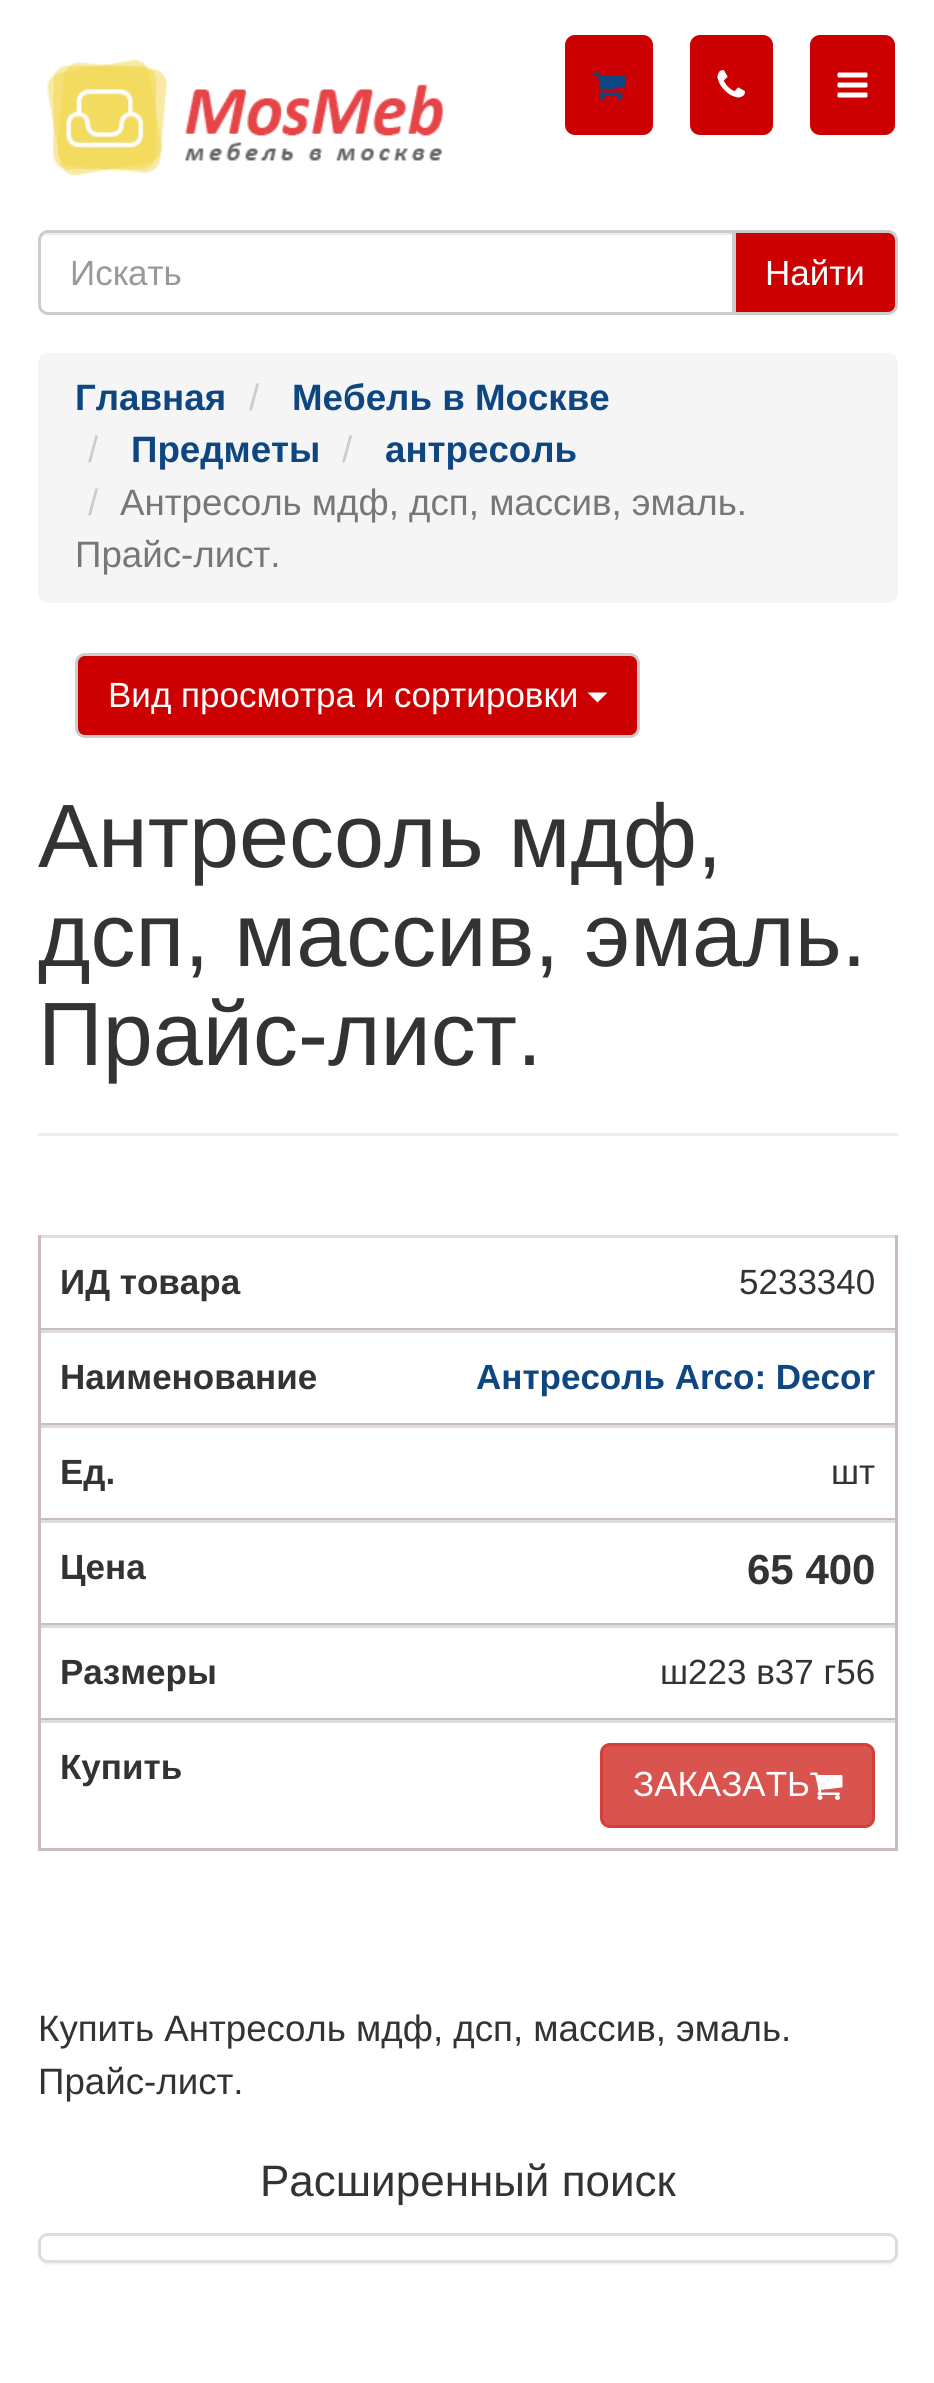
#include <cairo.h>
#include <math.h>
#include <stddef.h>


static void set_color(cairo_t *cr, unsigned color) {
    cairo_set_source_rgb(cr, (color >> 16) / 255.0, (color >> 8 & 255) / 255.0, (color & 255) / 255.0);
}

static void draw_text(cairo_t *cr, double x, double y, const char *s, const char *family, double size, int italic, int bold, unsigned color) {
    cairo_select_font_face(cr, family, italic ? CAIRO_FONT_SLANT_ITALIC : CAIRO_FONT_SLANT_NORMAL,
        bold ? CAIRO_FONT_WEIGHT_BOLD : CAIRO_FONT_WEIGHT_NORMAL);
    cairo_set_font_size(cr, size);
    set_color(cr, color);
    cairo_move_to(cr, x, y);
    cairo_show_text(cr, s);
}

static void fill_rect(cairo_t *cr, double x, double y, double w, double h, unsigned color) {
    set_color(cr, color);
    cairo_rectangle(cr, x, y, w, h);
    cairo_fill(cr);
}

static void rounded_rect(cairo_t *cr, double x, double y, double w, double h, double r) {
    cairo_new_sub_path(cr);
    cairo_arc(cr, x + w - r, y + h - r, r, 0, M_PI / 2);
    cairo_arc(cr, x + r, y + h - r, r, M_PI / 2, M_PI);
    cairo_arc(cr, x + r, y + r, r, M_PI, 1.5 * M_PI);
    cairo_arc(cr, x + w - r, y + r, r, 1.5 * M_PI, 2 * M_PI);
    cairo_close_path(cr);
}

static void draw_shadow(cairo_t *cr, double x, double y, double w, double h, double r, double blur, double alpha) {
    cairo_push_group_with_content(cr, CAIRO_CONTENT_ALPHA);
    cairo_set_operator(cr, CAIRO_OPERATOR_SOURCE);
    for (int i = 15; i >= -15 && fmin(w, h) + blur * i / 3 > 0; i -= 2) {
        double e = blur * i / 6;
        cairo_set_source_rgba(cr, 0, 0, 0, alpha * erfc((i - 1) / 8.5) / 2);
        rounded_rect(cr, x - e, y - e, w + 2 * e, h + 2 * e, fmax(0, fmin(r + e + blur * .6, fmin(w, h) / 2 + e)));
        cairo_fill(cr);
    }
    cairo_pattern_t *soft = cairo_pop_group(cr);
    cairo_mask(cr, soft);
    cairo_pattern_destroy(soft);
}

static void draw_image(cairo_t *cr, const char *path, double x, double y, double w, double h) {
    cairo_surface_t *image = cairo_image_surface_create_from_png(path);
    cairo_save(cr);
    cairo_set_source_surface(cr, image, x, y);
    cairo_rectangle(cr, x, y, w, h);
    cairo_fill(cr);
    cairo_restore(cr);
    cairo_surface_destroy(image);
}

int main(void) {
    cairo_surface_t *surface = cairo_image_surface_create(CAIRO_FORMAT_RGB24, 934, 2383);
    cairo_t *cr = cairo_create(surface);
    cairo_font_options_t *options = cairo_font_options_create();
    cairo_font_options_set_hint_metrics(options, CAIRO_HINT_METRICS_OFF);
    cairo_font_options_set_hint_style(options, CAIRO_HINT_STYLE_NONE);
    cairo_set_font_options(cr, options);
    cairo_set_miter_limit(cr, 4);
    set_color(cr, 0xFFFFFF);
    cairo_paint(cr);
    draw_image(cr, "assets/img1.png", 47, 59, 396, 117);
    set_color(cr, 0xCC0000);
    rounded_rect(cr, 565, 35, 88, 100, 10);
    cairo_fill(cr);
    draw_image(cr, "assets/img2.png", 592, 72, 33, 28);
    rounded_rect(cr, 690, 35, 83, 100, 10);
    cairo_fill(cr);
    draw_image(cr, "assets/img3.png", 717, 70, 28, 28);
    rounded_rect(cr, 810, 35, 85, 100, 10);
    cairo_fill(cr);
    draw_image(cr, "assets/img4.png", 837, 72, 31, 26);
    set_color(cr, 0xECECEC);
    cairo_new_path(cr);
    cairo_move_to(cr, 48, 235);
    cairo_line_to(cr, 732, 235);
    cairo_line_to(cr, 732, 313);
    cairo_line_to(cr, 733, 313);
    cairo_line_to(cr, 733, 233);
    cairo_line_to(cr, 48, 233);
    cairo_curve_to(cr, 44, 233, 40, 237, 40, 241);
    cairo_line_to(cr, 40, 242);
    cairo_curve_to(cr, 40, 238, 43, 235, 48, 235);
    cairo_close_path(cr);
    cairo_fill(cr);
    cairo_new_path(cr);
    cairo_move_to(cr, 48, 231.5);
    cairo_line_to(cr, 733.5, 231.5);
    cairo_line_to(cr, 733.5, 313.5);
    cairo_line_to(cr, 48, 313.5);
    cairo_curve_to(cr, 43.5, 313.5, 39.5, 309.5, 39.5, 305);
    cairo_line_to(cr, 39.5, 240);
    cairo_curve_to(cr, 39.5, 235.5, 43.5, 231.5, 48, 231.5);
    cairo_close_path(cr);
    set_color(cr, 0xCCCCCC);
    cairo_set_line_width(cr, 3);
    cairo_stroke(cr);
    draw_text(cr, 70, 285, "Искать", "Liberation Sans", 35, 0, 0, 0x999999);
    set_color(cr, 0xCC0000);
    cairo_new_path(cr);
    cairo_move_to(cr, 734.5, 231.5);
    cairo_line_to(cr, 888, 231.5);
    cairo_curve_to(cr, 892.5, 231.5, 896.5, 235.5, 896.5, 240);
    cairo_line_to(cr, 896.5, 305);
    cairo_curve_to(cr, 896.5, 309.5, 892.5, 313.5, 888, 313.5);
    cairo_line_to(cr, 734.5, 313.5);
    cairo_close_path(cr);
    cairo_fill_preserve(cr);
    set_color(cr, 0xCCCCCC);
    cairo_stroke(cr);
    draw_text(cr, 765, 285, "Найти", "Liberation Sans", 35, 0, 0, 0xFFFFFF);
    set_color(cr, 0xF5F5F5);
    rounded_rect(cr, 38, 353, 860, 250, 10);
    cairo_fill(cr);
    draw_text(cr, 75, 410, "Главная", "Liberation Sans", 36.7, 0, 1, 0x0D4680);
    draw_text(cr, 249, 410, "/", "Liberation Sans", 36.7, 0, 0, 0xCCCCCC);
    draw_text(cr, 292, 410, "Мебель в Москве", "Liberation Sans", 36.7, 0, 1, 0x0D4680);
    draw_text(cr, 88, 462, "/", "Liberation Sans", 36.7, 0, 0, 0xCCCCCC);
    draw_text(cr, 131, 462, "Предметы", "Liberation Sans", 36.7, 0, 1, 0x0D4680);
    draw_text(cr, 342, 462, "/", "Liberation Sans", 36.7, 0, 0, 0xCCCCCC);
    draw_text(cr, 385, 462, "антресоль", "Liberation Sans", 36.7, 0, 1, 0x0D4680);
    draw_text(cr, 88, 515, "/", "Liberation Sans", 36.7, 0, 0, 0xCCCCCC);
    draw_text(cr, 120, 515, "Антресоль мдф, дсп, массив, эмаль.", "Liberation Sans", 36.7, 0, 0, 0x777777);
    draw_text(cr, 75, 567, "Прайс-лист.", "Liberation Sans", 36.7, 0, 0, 0x777777);
    set_color(cr, 0xCC0000);
    rounded_rect(cr, 76.5, 654.5, 562, 82, 8.5);
    cairo_fill_preserve(cr);
    set_color(cr, 0xCCCCCC);
    cairo_stroke(cr);
    draw_text(cr, 108, 707, "Вид просмотра и сортировки", "Liberation Sans", 35, 0, 0, 0xFFFFFF);
    cairo_new_path(cr);
    cairo_move_to(cr, 587.5, 692.5);
    cairo_line_to(cr, 607.5, 692.5);
    cairo_line_to(cr, 597.5, 702.5);
    cairo_close_path(cr);
    cairo_fill(cr);
    fill_rect(cr, 38, 1133, 860, 3, 0xEEEEEE);
    draw_text(cr, 38, 867, "Антресоль мдф,", "Liberation Sans", 90, 0, 0, 0x333333);
    draw_text(cr, 38, 966, "дсп, массив, эмаль.", "Liberation Sans", 90, 0, 0, 0x333333);
    draw_text(cr, 38, 1065, "Прайс-лист.", "Liberation Sans", 90, 0, 0, 0x333333);
    fill_rect(cr, 38, 1235, 860, 3, 0xDDDDDD);
    fill_rect(cr, 895, 1235, 3, 95, 0xCBBDBD);
    fill_rect(cr, 38, 1328, 860, 2, 0xCBBDBD);
    fill_rect(cr, 38, 1235, 3, 95, 0xCBBDBD);
    draw_text(cr, 60, 1294, "ИД товара", "Liberation Sans", 35, 0, 1, 0x333333);
    draw_text(cr, 739, 1294, "5233340", "Liberation Sans", 35, 0, 0, 0x333333);
    fill_rect(cr, 38, 1330, 860, 3, 0xDDDDDD);
    fill_rect(cr, 895, 1330, 3, 95, 0xCBBDBD);
    fill_rect(cr, 38, 1423, 860, 2, 0xCBBDBD);
    fill_rect(cr, 38, 1330, 3, 95, 0xCBBDBD);
    draw_text(cr, 60, 1389, "Наименование", "Liberation Sans", 35, 0, 1, 0x333333);
    draw_text(cr, 476, 1389, "Антресоль Arco: Decor", "Liberation Sans", 35, 0, 1, 0x0D4680);
    fill_rect(cr, 38, 1425, 860, 3, 0xDDDDDD);
    fill_rect(cr, 895, 1425, 3, 95, 0xCBBDBD);
    fill_rect(cr, 38, 1518, 860, 2, 0xCBBDBD);
    fill_rect(cr, 38, 1425, 3, 95, 0xCBBDBD);
    draw_text(cr, 60, 1484, "Ед.", "Liberation Sans", 35, 0, 1, 0x333333);
    draw_text(cr, 831, 1484, "шт", "Liberation Sans", 35, 0, 0, 0x333333);
    fill_rect(cr, 38, 1520, 860, 3, 0xDDDDDD);
    fill_rect(cr, 895, 1520, 3, 105, 0xCBBDBD);
    fill_rect(cr, 38, 1623, 860, 2, 0xCBBDBD);
    fill_rect(cr, 38, 1520, 3, 105, 0xCBBDBD);
    draw_text(cr, 60, 1579, "Цена", "Liberation Sans", 35, 0, 1, 0x333333);
    draw_text(cr, 747, 1584, "65 400", "Liberation Sans", 42, 0, 1, 0x333333);
    fill_rect(cr, 38, 1625, 860, 3, 0xDDDDDD);
    fill_rect(cr, 895, 1625, 3, 95, 0xCBBDBD);
    fill_rect(cr, 38, 1718, 860, 2, 0xCBBDBD);
    fill_rect(cr, 38, 1625, 3, 95, 0xCBBDBD);
    draw_text(cr, 60, 1684, "Размеры", "Liberation Sans", 35, 0, 1, 0x333333);
    draw_text(cr, 660, 1684, "ш223 в37 г56", "Liberation Sans", 35, 0, 0, 0x333333);
    fill_rect(cr, 38, 1720, 860, 3, 0xDDDDDD);
    fill_rect(cr, 895, 1720, 3, 130, 0xCBBDBD);
    fill_rect(cr, 38, 1848, 860, 3, 0xCBBDBD);
    fill_rect(cr, 38, 1720, 3, 130, 0xCBBDBD);
    draw_text(cr, 60, 1779, "Купить", "Liberation Sans", 35, 0, 1, 0x333333);
    set_color(cr, 0xD9534F);
    rounded_rect(cr, 601.5, 1744.5, 272, 82, 8.5);
    cairo_fill_preserve(cr);
    set_color(cr, 0xD43F3A);
    cairo_stroke(cr);
    draw_text(cr, 633, 1796, "ЗАКАЗАТЬ", "Liberation Sans", 35, 0, 0, 0xFFFFFF);
    draw_image(cr, "assets/img5.png", 810, 1772, 33, 28);
    draw_text(cr, 38, 2041, "Купить Антресоль мдф, дсп, массив, эмаль.", "Liberation Sans", 36.7, 0, 0, 0x333333);
    draw_text(cr, 38, 2094, "Прайс-лист.", "Liberation Sans", 36.7, 0, 0, 0x333333);
    draw_text(cr, 260, 2196, "Расширенный поиск", "Liberation Sans", 44, 0, 0, 0x333333);
    set_color(cr, 0x000000);
    draw_shadow(cr, 38, 2235, 860, 30, 10, 1, 0.05);
    set_color(cr, 0xFFFFFF);
    rounded_rect(cr, 39.5, 2234.5, 857, 27, 8.5);
    cairo_fill_preserve(cr);
    set_color(cr, 0xDDDDDD);
    cairo_stroke(cr);
    cairo_surface_write_to_png(surface, "output.png");
    cairo_font_options_destroy(options);
    cairo_destroy(cr);
    cairo_surface_destroy(surface);
    return 0;
}
